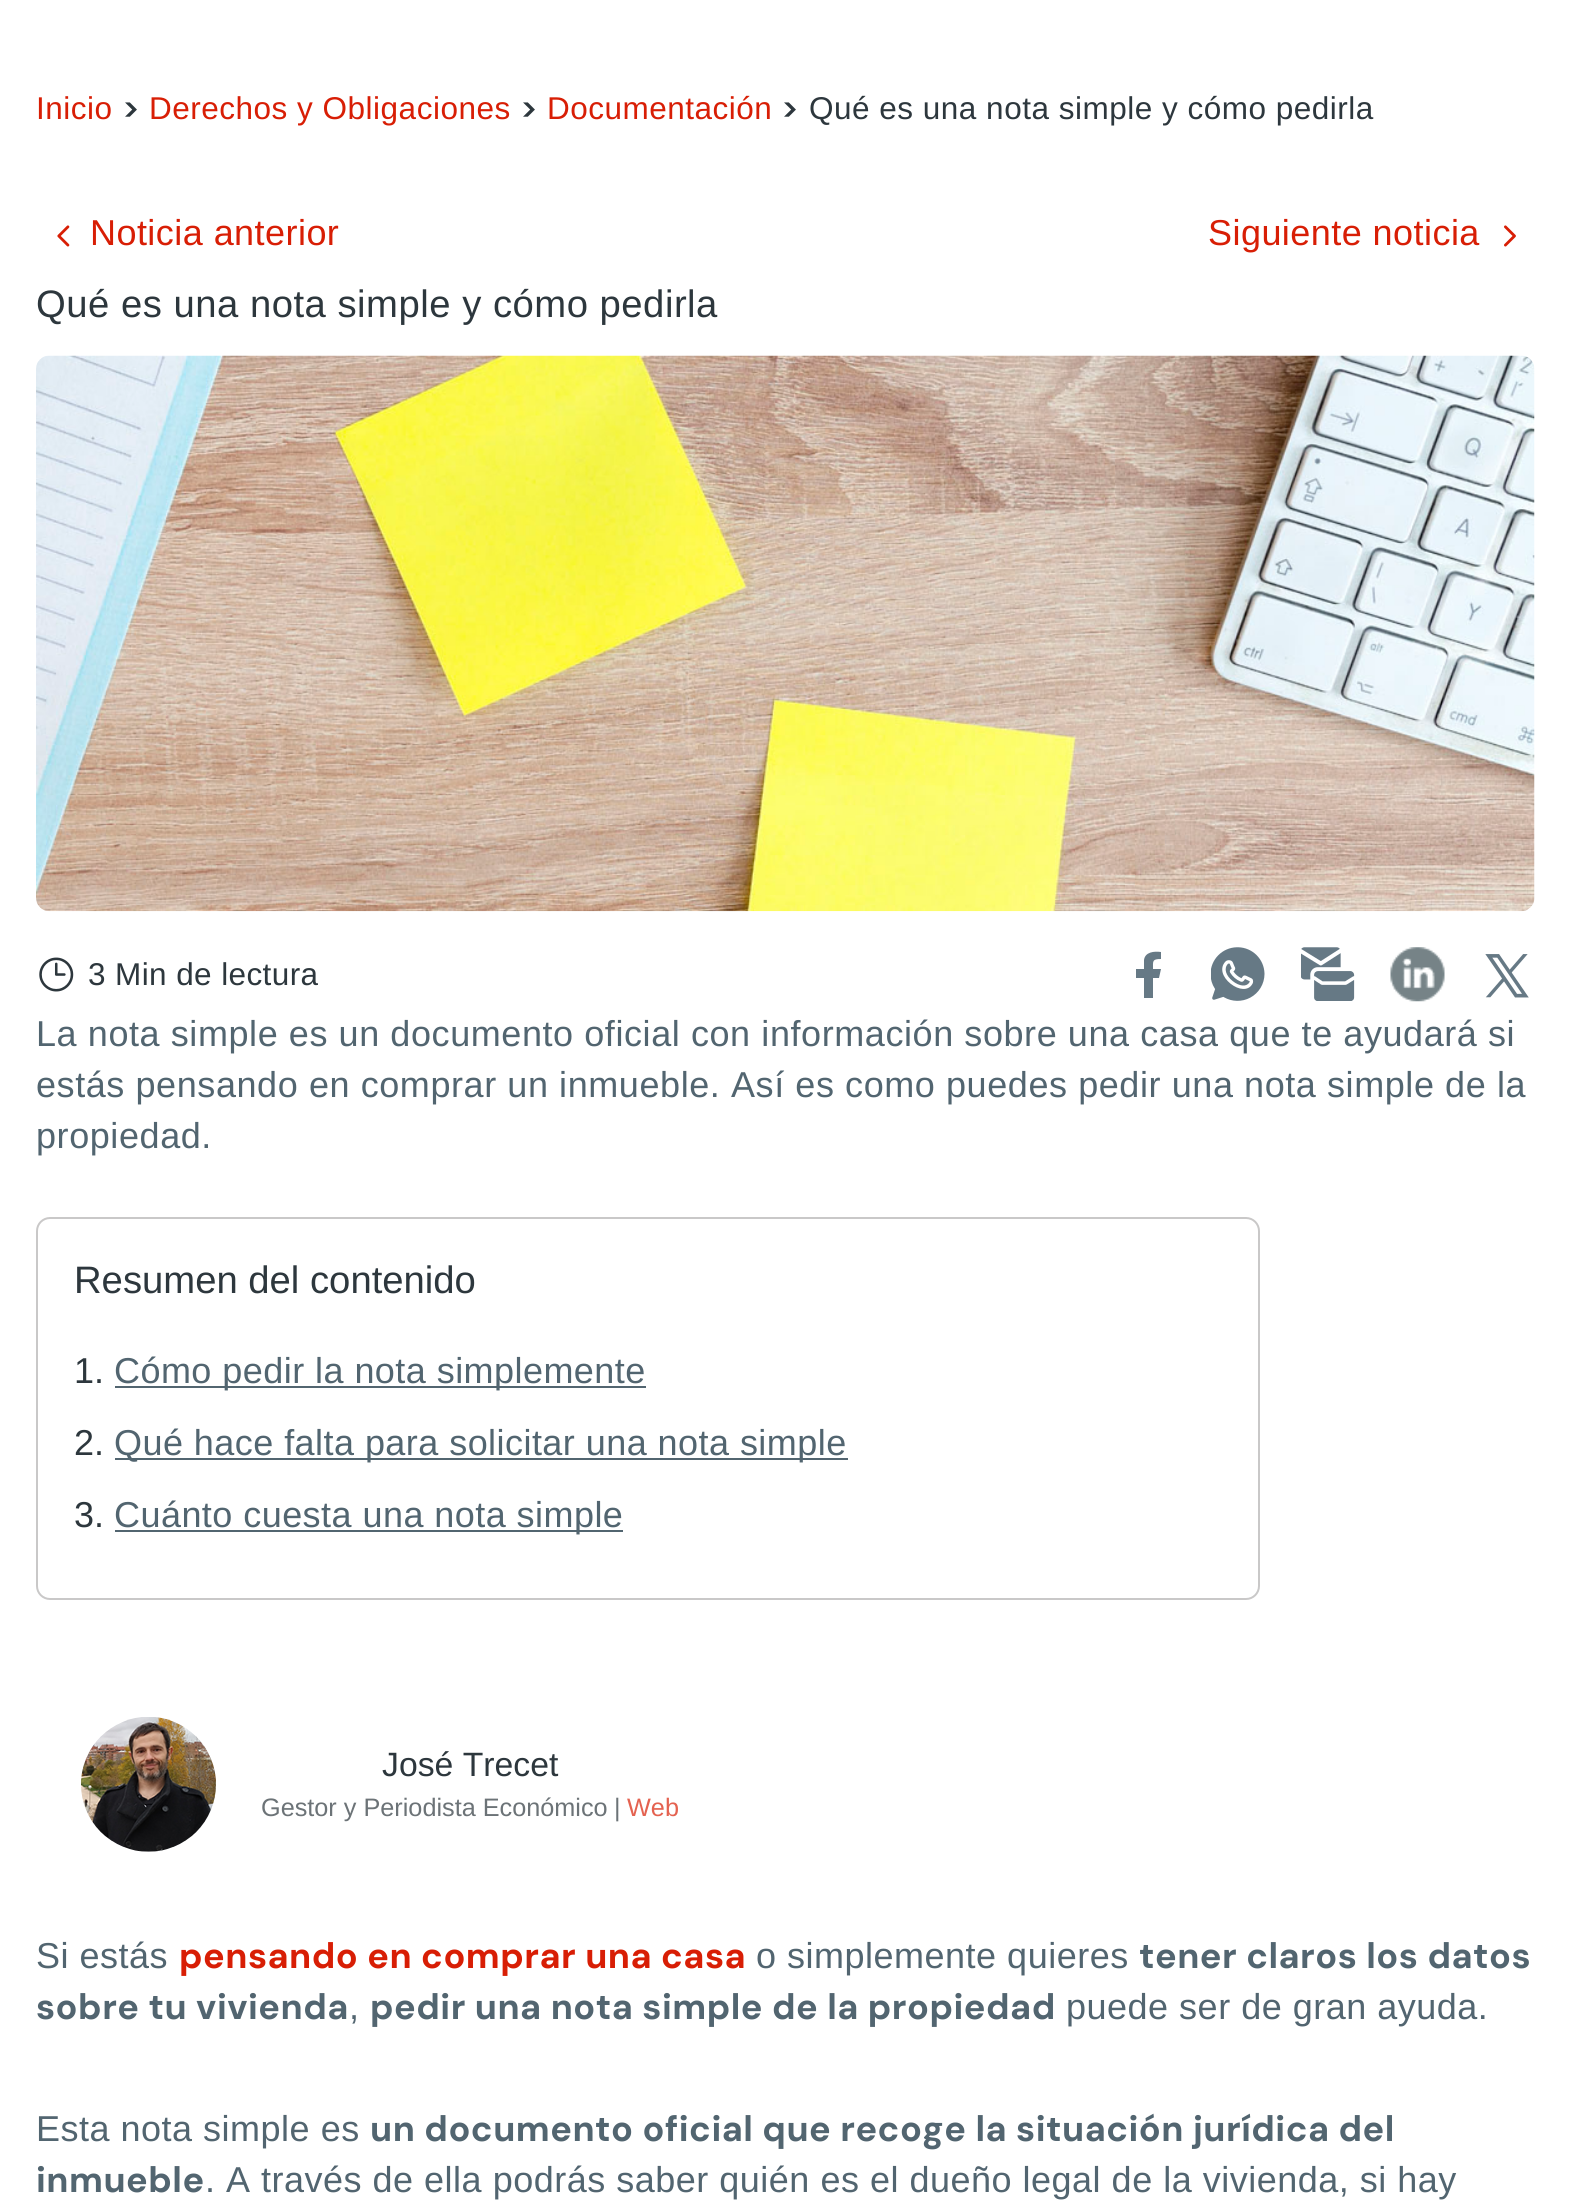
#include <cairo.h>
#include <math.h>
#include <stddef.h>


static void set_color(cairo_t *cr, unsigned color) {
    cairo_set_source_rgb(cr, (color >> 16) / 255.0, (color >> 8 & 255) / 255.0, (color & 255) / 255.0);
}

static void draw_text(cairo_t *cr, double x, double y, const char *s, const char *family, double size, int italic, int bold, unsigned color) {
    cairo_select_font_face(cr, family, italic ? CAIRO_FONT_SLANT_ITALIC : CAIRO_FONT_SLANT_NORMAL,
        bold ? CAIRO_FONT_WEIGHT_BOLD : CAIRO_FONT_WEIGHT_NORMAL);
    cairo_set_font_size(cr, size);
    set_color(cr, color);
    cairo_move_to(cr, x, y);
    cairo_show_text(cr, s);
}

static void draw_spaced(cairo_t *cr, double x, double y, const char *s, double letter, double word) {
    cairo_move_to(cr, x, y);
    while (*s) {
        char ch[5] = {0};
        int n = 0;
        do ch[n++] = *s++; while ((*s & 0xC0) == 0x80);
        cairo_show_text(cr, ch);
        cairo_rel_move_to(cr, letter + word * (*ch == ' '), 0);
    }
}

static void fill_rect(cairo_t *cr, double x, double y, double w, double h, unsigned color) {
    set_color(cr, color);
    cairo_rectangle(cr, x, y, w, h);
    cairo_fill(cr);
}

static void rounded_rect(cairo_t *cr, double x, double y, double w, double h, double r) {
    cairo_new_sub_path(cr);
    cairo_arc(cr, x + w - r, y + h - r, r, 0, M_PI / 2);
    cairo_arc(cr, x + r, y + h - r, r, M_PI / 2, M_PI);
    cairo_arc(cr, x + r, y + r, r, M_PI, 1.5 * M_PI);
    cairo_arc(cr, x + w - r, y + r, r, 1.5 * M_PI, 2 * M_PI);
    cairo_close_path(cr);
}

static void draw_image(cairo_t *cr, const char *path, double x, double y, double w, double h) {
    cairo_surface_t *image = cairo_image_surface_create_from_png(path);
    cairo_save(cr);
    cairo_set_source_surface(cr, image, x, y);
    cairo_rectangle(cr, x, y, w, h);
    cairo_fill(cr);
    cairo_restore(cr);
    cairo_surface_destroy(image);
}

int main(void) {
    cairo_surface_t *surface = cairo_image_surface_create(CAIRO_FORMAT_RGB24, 1570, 2209);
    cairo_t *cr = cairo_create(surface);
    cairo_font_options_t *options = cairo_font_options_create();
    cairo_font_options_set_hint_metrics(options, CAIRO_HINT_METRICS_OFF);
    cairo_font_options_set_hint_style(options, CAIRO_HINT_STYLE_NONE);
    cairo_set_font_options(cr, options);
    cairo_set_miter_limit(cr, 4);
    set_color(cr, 0xFFFFFF);
    cairo_paint(cr);
    cairo_select_font_face(cr, "Liberation Sans", CAIRO_FONT_SLANT_NORMAL, CAIRO_FONT_WEIGHT_NORMAL);
    cairo_set_font_size(cr, 31.5);
    set_color(cr, 0xD81E05);
    draw_spaced(cr, 36, 119, "Inicio", 0.5, 0);
    cairo_select_font_face(cr, "DM Sans SemiBold", CAIRO_FONT_SLANT_NORMAL, CAIRO_FONT_WEIGHT_NORMAL);
    set_color(cr, 0x2D373D);
    draw_spaced(cr, 122, 119, ">", 0.5, 0);
    cairo_select_font_face(cr, "Liberation Sans", CAIRO_FONT_SLANT_NORMAL, CAIRO_FONT_WEIGHT_NORMAL);
    set_color(cr, 0xD81E05);
    draw_spaced(cr, 149, 119, "Derechos y Obligaciones", 0.5, 0);
    cairo_select_font_face(cr, "DM Sans SemiBold", CAIRO_FONT_SLANT_NORMAL, CAIRO_FONT_WEIGHT_NORMAL);
    set_color(cr, 0x2D373D);
    draw_spaced(cr, 520, 119, ">", 0.5, 0);
    cairo_select_font_face(cr, "Liberation Sans", CAIRO_FONT_SLANT_NORMAL, CAIRO_FONT_WEIGHT_NORMAL);
    set_color(cr, 0xD81E05);
    draw_spaced(cr, 547, 119, "Documentación", 0.5, 0);
    cairo_select_font_face(cr, "DM Sans SemiBold", CAIRO_FONT_SLANT_NORMAL, CAIRO_FONT_WEIGHT_NORMAL);
    set_color(cr, 0x2D373D);
    draw_spaced(cr, 781, 119, ">", 0.5, 0);
    cairo_select_font_face(cr, "Liberation Sans", CAIRO_FONT_SLANT_NORMAL, CAIRO_FONT_WEIGHT_NORMAL);
    draw_spaced(cr, 809, 119, "Qué es una nota simple y cómo pedirla", 0.5, 0);
    draw_image(cr, "assets/img1.png", 57, 225, 13, 22);
    cairo_set_font_size(cr, 36);
    set_color(cr, 0xD81E05);
    draw_spaced(cr, 90, 245, "Noticia anterior", 0.45, 0);
    draw_spaced(cr, 1208, 245, "Siguiente noticia", 0.45, 0);
    draw_image(cr, "assets/img2.png", 1504, 225, 12, 22);
    cairo_set_font_size(cr, 38.25);
    set_color(cr, 0x2D373D);
    draw_spaced(cr, 36, 317, "Qué es una nota simple y cómo pedirla", 0.5, 0);
    draw_image(cr, "assets/img3.png", 36, 355, 1499, 557);
    draw_image(cr, "assets/img4.png", 39, 957, 35, 35);
    cairo_set_font_size(cr, 31.5);
    draw_spaced(cr, 88, 985, "3 Min de lectura", 0.4, 0);
    set_color(cr, 0x667985);
    cairo_new_path(cr);
    cairo_move_to(cr, 1159, 978);
    cairo_line_to(cr, 1161, 969);
    cairo_line_to(cr, 1153, 969);
    cairo_curve_to(cr, 1153, 961, 1152, 959, 1161, 959);
    cairo_line_to(cr, 1161, 952);
    cairo_curve_to(cr, 1154, 951, 1145, 952, 1144, 960);
    cairo_line_to(cr, 1144, 969);
    cairo_line_to(cr, 1136, 969);
    cairo_line_to(cr, 1136, 978);
    cairo_line_to(cr, 1144, 978);
    cairo_line_to(cr, 1144, 998);
    cairo_line_to(cr, 1153, 998);
    cairo_line_to(cr, 1153, 978);
    cairo_close_path(cr);
    cairo_fill(cr);
    draw_image(cr, "assets/img5.png", 1211, 947, 54, 54);
    draw_image(cr, "assets/img6.png", 1301, 947, 54, 54);
    draw_image(cr, "assets/img7.png", 1390, 947, 55, 55);
    draw_image(cr, "assets/img8.png", 1485, 954, 44, 44);
    cairo_set_font_size(cr, 36);
    set_color(cr, 0x526570);
    draw_spaced(cr, 36, 1046, "La nota simple es un documento oficial con información sobre una casa que te ayudará si", 0.58, 0);
    draw_spaced(cr, 36, 1097, "estás pensando en comprar un inmueble. Así es como puedes pedir una nota simple de la", 0.58, 0);
    draw_spaced(cr, 36, 1148, "propiedad.", 0.58, 0);
    rounded_rect(cr, 37, 1218, 1222, 381, 13);
    set_color(cr, 0xC9C8C8);
    cairo_stroke(cr);
    draw_text(cr, 74, 1293, "Resumen del contenido", "Liberation Sans", 38.25, 0, 0, 0x2D373D);
    draw_text(cr, 74, 1383, "1.", "Liberation Sans", 36, 0, 0, 0x2D373D);
    fill_rect(cr, 115, 1386, 531, 2, 0x526570);
    draw_spaced(cr, 114, 1383, "Cómo pedir la nota simplemente", 0.45, 0);
    draw_text(cr, 74, 1455, "2.", "Liberation Sans", 36, 0, 0, 0x2D373D);
    fill_rect(cr, 115, 1458, 733, 2, 0x526570);
    draw_spaced(cr, 114, 1455, "Qué hace falta para solicitar una nota simple", 0.45, 0);
    draw_text(cr, 74, 1527, "3.", "Liberation Sans", 36, 0, 0, 0x2D373D);
    fill_rect(cr, 115, 1530, 508, 2, 0x526570);
    draw_spaced(cr, 114, 1527, "Cuánto cuesta una nota simple", 0.45, 0);
    draw_image(cr, "assets/img9.png", 81, 1717, 135, 135);
    draw_text(cr, 382, 1776, "José Trecet", "Liberation Sans", 33.75, 0, 0, 0x2D373D);
    draw_text(cr, 261, 1816, "Gestor y Periodista Económico", "Liberation Sans", 25.25, 0, 0, 0x6C7377);
    draw_text(cr, 614, 1816, "|", "Liberation Sans", 25.25, 0, 0, 0x6C7377);
    draw_text(cr, 627, 1816, "Web", "Liberation Sans", 25.25, 0, 0, 0xE46250);
    cairo_set_font_size(cr, 36);
    set_color(cr, 0x526570);
    draw_spaced(cr, 36, 1968, "Si estás", 0.5, 0);
    cairo_select_font_face(cr, "DM Sans", CAIRO_FONT_SLANT_NORMAL, CAIRO_FONT_WEIGHT_BOLD);
    set_color(cr, 0xD81E05);
    draw_spaced(cr, 179, 1968, "pensando en comprar una casa", 0.5, 0);
    cairo_select_font_face(cr, "Liberation Sans", CAIRO_FONT_SLANT_NORMAL, CAIRO_FONT_WEIGHT_NORMAL);
    set_color(cr, 0x526570);
    draw_spaced(cr, 756, 1968, "o simplemente quieres", 0.5, 0);
    cairo_select_font_face(cr, "DM Sans", CAIRO_FONT_SLANT_NORMAL, CAIRO_FONT_WEIGHT_BOLD);
    draw_spaced(cr, 1139, 1968, "tener claros los datos", 0.5, 0);
    draw_spaced(cr, 36, 2019, "sobre tu vivienda", 0.5, 0);
    cairo_select_font_face(cr, "Liberation Sans", CAIRO_FONT_SLANT_NORMAL, CAIRO_FONT_WEIGHT_NORMAL);
    draw_spaced(cr, 349, 2019, ",", 0.5, 0);
    cairo_select_font_face(cr, "DM Sans", CAIRO_FONT_SLANT_NORMAL, CAIRO_FONT_WEIGHT_BOLD);
    draw_spaced(cr, 370, 2019, "pedir una nota simple de la propiedad", 0.5, 0);
    cairo_select_font_face(cr, "Liberation Sans", CAIRO_FONT_SLANT_NORMAL, CAIRO_FONT_WEIGHT_NORMAL);
    draw_spaced(cr, 1066, 2019, "puede ser de gran ayuda.", 0.5, 0);
    draw_spaced(cr, 36, 2141, "Esta nota simple es", 0.5, 0);
    cairo_select_font_face(cr, "DM Sans", CAIRO_FONT_SLANT_NORMAL, CAIRO_FONT_WEIGHT_BOLD);
    draw_spaced(cr, 370, 2141, "un documento oficial que recoge la situación jurídica del", 0.5, 0);
    draw_spaced(cr, 36, 2192, "inmueble", 0.5, 0);
    cairo_select_font_face(cr, "Liberation Sans", CAIRO_FONT_SLANT_NORMAL, CAIRO_FONT_WEIGHT_NORMAL);
    draw_spaced(cr, 205, 2192, ". A través de ella podrás saber quién es el dueño legal de la vivienda, si hay", 0.5, 0);
    cairo_surface_write_to_png(surface, "output.png");
    cairo_font_options_destroy(options);
    cairo_destroy(cr);
    cairo_surface_destroy(surface);
    return 0;
}
